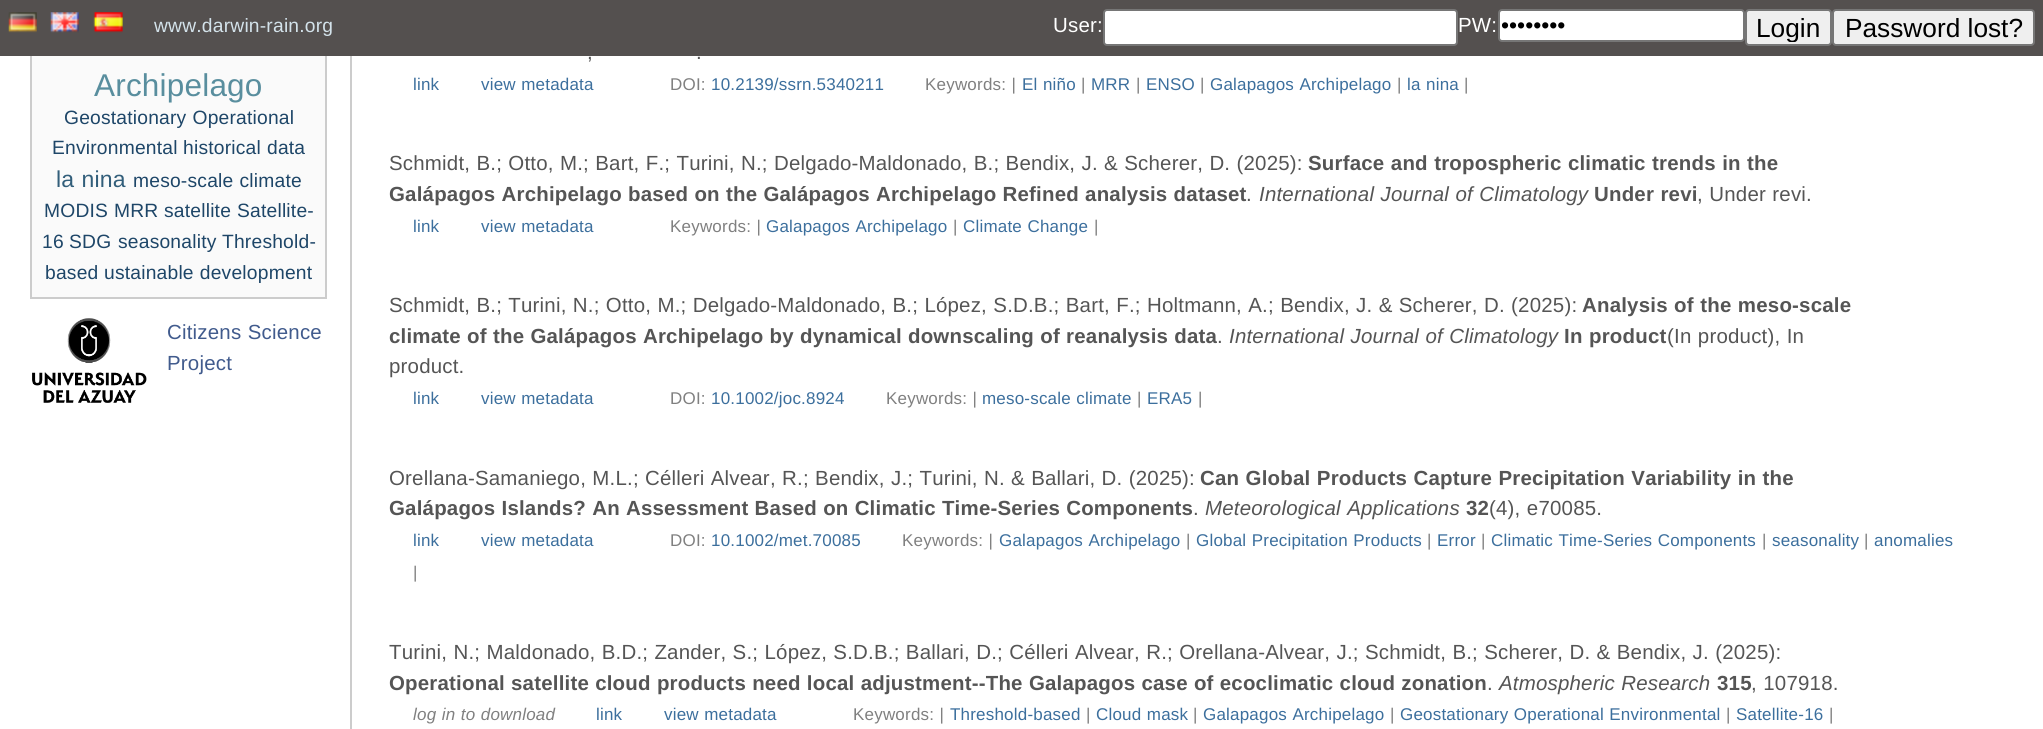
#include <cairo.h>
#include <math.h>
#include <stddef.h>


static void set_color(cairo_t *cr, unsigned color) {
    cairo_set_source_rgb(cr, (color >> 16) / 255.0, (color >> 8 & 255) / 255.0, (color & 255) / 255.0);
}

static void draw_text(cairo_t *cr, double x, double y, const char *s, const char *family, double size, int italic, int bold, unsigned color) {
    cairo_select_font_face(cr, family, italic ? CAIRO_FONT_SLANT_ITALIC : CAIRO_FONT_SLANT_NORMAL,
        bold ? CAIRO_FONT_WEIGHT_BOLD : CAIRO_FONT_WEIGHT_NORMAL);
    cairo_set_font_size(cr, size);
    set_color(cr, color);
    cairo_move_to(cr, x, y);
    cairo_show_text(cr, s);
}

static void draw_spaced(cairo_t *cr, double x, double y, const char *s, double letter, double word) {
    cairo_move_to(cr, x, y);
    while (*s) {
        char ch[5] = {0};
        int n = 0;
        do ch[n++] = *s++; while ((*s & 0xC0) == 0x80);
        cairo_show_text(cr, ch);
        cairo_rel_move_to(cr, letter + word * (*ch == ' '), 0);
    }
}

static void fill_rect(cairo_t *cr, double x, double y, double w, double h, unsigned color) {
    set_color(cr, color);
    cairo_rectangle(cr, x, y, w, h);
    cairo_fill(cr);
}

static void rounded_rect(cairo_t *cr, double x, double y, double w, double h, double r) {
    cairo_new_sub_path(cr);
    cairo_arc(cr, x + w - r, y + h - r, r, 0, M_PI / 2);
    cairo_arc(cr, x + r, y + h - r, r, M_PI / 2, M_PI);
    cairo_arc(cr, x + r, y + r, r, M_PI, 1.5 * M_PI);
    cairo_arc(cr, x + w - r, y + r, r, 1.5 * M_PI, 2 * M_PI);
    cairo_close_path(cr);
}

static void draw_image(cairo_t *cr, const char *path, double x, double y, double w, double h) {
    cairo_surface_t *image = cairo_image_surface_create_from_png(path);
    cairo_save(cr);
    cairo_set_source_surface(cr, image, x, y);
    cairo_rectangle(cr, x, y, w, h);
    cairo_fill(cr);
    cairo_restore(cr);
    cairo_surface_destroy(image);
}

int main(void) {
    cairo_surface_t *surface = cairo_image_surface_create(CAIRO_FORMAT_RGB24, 2043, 729);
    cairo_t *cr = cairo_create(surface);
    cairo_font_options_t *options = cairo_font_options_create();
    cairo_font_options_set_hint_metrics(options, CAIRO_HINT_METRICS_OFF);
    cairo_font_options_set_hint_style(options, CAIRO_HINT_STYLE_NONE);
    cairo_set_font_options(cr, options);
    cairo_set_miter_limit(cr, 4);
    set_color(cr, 0xFFFFFF);
    cairo_paint(cr);
    fill_rect(cr, 32, 56, 293, 241, 0xFAFAFA);
    cairo_rectangle(cr, 31, -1, 295, 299);
    set_color(cr, 0xCCCCCC);
    cairo_stroke(cr);
    fill_rect(cr, 0, 0, 2043, 56, 0x54504F);
    draw_image(cr, "assets/img1.png", 8, 12, 29, 21);
    draw_image(cr, "assets/img2.png", 50, 12, 29, 21);
    draw_image(cr, "assets/img3.png", 93, 12, 30, 21);
    cairo_select_font_face(cr, "Liberation Sans", CAIRO_FONT_SLANT_NORMAL, CAIRO_FONT_WEIGHT_NORMAL);
    cairo_set_font_size(cr, 19.25);
    set_color(cr, 0xD3E2EA);
    draw_spaced(cr, 154, 32, "www.darwin-rain.org", 0.2, 0);
    cairo_set_font_size(cr, 20.45);
    set_color(cr, 0xFFFFFF);
    draw_spaced(cr, 1053, 32, "User:", 0.2, 0);
    rounded_rect(cr, 1104, 10, 353, 35, 3);
    cairo_fill_preserve(cr);
    set_color(cr, 0x767676);
    cairo_stroke(cr);
    set_color(cr, 0xFFFFFF);
    draw_spaced(cr, 1458, 32, "PW:", 0.2, 0);
    rounded_rect(cr, 1499, 10, 245, 31, 3);
    cairo_fill_preserve(cr);
    set_color(cr, 0x767676);
    cairo_stroke(cr);
    cairo_save(cr);
    cairo_rectangle(cr, 1502, 12, 239, 27);
    cairo_clip(cr);
    draw_text(cr, 1501, 33, "••••••••", "Liberation Sans", 23, 0, 0, 0x000000);
    cairo_restore(cr);
    set_color(cr, 0xEFEFEF);
    rounded_rect(cr, 1746, 10, 85, 35, 3);
    cairo_fill_preserve(cr);
    set_color(cr, 0x767676);
    cairo_stroke(cr);
    cairo_save(cr);
    cairo_rectangle(cr, 1748, 12, 81, 30);
    cairo_clip(cr);
    draw_text(cr, 1756, 37, "Login", "Liberation Sans", 26.25, 0, 0, 0x000000);
    cairo_restore(cr);
    set_color(cr, 0xEFEFEF);
    rounded_rect(cr, 1833, 10, 201, 35, 3);
    cairo_fill_preserve(cr);
    set_color(cr, 0x767676);
    cairo_stroke(cr);
    draw_text(cr, 1845, 37, "Password lost?", "Liberation Sans", 26.25, 0, 0, 0x000000);
    fill_rect(cr, 350, 56, 2, 673, 0xCCCCCC);
    cairo_set_font_size(cr, 31.5);
    set_color(cr, 0x598E9E);
    draw_spaced(cr, 94, 96, "Archipelago", 0.2, 0);
    cairo_set_font_size(cr, 19.25);
    set_color(cr, 0x1E4668);
    draw_spaced(cr, 64, 124, "Geostationary Operational", 0.2, 0.5);
    draw_spaced(cr, 52, 154, "Environmental", 0.2, 0);
    draw_spaced(cr, 183, 154, "historical data", 0.2, 0.5);
    cairo_set_font_size(cr, 23);
    set_color(cr, 0x325E7A);
    draw_spaced(cr, 56, 187, "la nina", 0.2, 0.5);
    cairo_set_font_size(cr, 19.25);
    set_color(cr, 0x1E4668);
    draw_spaced(cr, 133, 187, "meso-scale climate", 0.2, 0.5);
    draw_spaced(cr, 44, 217, "MODIS", 0.2, 0);
    draw_spaced(cr, 114, 217, "MRR", 0.2, 0);
    draw_spaced(cr, 164, 217, "satellite", 0.2, 0);
    draw_spaced(cr, 237, 217, "Satellite-", 0.2, 0);
    draw_spaced(cr, 42, 248, "16", 0.2, 0);
    draw_spaced(cr, 69, 248, "SDG", 0.2, 0);
    draw_spaced(cr, 118, 248, "seasonality", 0.2, 0);
    draw_spaced(cr, 222, 248, "Threshold-", 0.2, 0);
    draw_spaced(cr, 45, 279, "based", 0.2, 0);
    draw_spaced(cr, 104, 279, "ustainable development", 0.2, 0.5);
    draw_image(cr, "assets/img4.png", 32, 318, 115, 85);
    cairo_set_font_size(cr, 20.45);
    set_color(cr, 0x415B8D);
    draw_spaced(cr, 167, 339, "Citizens Science", 0.2, 0.5);
    draw_spaced(cr, 167, 370, "Project", 0.2, 0);
    set_color(cr, 0x555555);
    draw_spaced(cr, 587, 59, ",", 0.2, 0.5);
    draw_spaced(cr, 696, 59, ".", 0.2, 0.5);
    cairo_set_font_size(cr, 17);
    set_color(cr, 0x3C6F9D);
    draw_spaced(cr, 413, 90, "link", 0.2, 0);
    draw_spaced(cr, 481, 90, "view metadata", 0.2, 0.5);
    set_color(cr, 0x808080);
    draw_spaced(cr, 670, 90, "DOI:", 0.2, 0);
    set_color(cr, 0x3C6F9D);
    draw_spaced(cr, 711, 90, "10.2139/ssrn.5340211", 0.2, 0);
    set_color(cr, 0x808080);
    draw_spaced(cr, 925, 90, "Keywords: |", 0.2, 0.5);
    set_color(cr, 0x3C6F9D);
    draw_spaced(cr, 1022, 90, "El niño", 0.2, 0.5);
    set_color(cr, 0x808080);
    draw_spaced(cr, 1081, 90, "|", 0.2, 0);
    set_color(cr, 0x3C6F9D);
    draw_spaced(cr, 1091, 90, "MRR", 0.2, 0);
    set_color(cr, 0x808080);
    draw_spaced(cr, 1136, 90, "|", 0.2, 0);
    set_color(cr, 0x3C6F9D);
    draw_spaced(cr, 1146, 90, "ENSO", 0.2, 0);
    set_color(cr, 0x808080);
    draw_spaced(cr, 1200, 90, "|", 0.2, 0);
    set_color(cr, 0x3C6F9D);
    draw_spaced(cr, 1210, 90, "Galapagos Archipelago", 0.2, 0.5);
    set_color(cr, 0x808080);
    draw_spaced(cr, 1397, 90, "|", 0.2, 0);
    set_color(cr, 0x3C6F9D);
    draw_spaced(cr, 1407, 90, "la nina", 0.2, 0.5);
    set_color(cr, 0x808080);
    draw_spaced(cr, 1464, 90, "|", 0.2, 0);
    cairo_set_font_size(cr, 20.45);
    set_color(cr, 0x555555);
    draw_spaced(cr, 389, 170, "Schmidt, B.; Otto, M.; Bart, F.; Turini, N.; Delgado-Maldonado, B.; Bendix, J. & Scherer, D. (2025):", 0.2, 0.4);
    cairo_select_font_face(cr, "Liberation Sans", CAIRO_FONT_SLANT_NORMAL, CAIRO_FONT_WEIGHT_BOLD);
    draw_spaced(cr, 1308, 170, "Surface and tropospheric climatic trends in the", 0.2, 0.5);
    draw_spaced(cr, 389, 201, "Galápagos Archipelago based on the Galápagos Archipelago Refined analysis dataset", 0.2, 0.3);
    cairo_select_font_face(cr, "Liberation Sans", CAIRO_FONT_SLANT_NORMAL, CAIRO_FONT_WEIGHT_NORMAL);
    draw_spaced(cr, 1246, 201, ".", 0.2, 0);
    cairo_select_font_face(cr, "Liberation Sans", CAIRO_FONT_SLANT_ITALIC, CAIRO_FONT_WEIGHT_NORMAL);
    draw_spaced(cr, 1259, 201, "International Journal of Climatology", 0.2, 0.5);
    cairo_select_font_face(cr, "Liberation Sans", CAIRO_FONT_SLANT_NORMAL, CAIRO_FONT_WEIGHT_BOLD);
    draw_spaced(cr, 1594, 201, "Under revi", 0.2, 0.5);
    cairo_select_font_face(cr, "Liberation Sans", CAIRO_FONT_SLANT_NORMAL, CAIRO_FONT_WEIGHT_NORMAL);
    draw_spaced(cr, 1697, 201, ", Under revi.", 0.2, 0.5);
    cairo_set_font_size(cr, 17);
    set_color(cr, 0x3C6F9D);
    draw_spaced(cr, 413, 232, "link", 0.2, 0);
    draw_spaced(cr, 481, 232, "view metadata", 0.2, 0.5);
    set_color(cr, 0x808080);
    draw_spaced(cr, 670, 232, "Keywords: |", 0.2, 0.5);
    set_color(cr, 0x3C6F9D);
    draw_spaced(cr, 766, 232, "Galapagos Archipelago", 0.2, 0.5);
    set_color(cr, 0x808080);
    draw_spaced(cr, 953, 232, "|", 0.2, 0);
    set_color(cr, 0x3C6F9D);
    draw_spaced(cr, 963, 232, "Climate Change", 0.2, 0.5);
    set_color(cr, 0x808080);
    draw_spaced(cr, 1094, 232, "|", 0.2, 0);
    cairo_set_font_size(cr, 20.45);
    set_color(cr, 0x555555);
    draw_spaced(cr, 389, 312, "Schmidt, B.; Turini, N.; Otto, M.; Delgado-Maldonado, B.; López, S.D.B.; Bart, F.; Holtmann, A.; Bendix, J. & Scherer, D. (2025):", 0.2, 0.4);
    cairo_select_font_face(cr, "Liberation Sans", CAIRO_FONT_SLANT_NORMAL, CAIRO_FONT_WEIGHT_BOLD);
    draw_spaced(cr, 1582, 312, "Analysis of the meso-scale", 0.2, 0.5);
    draw_spaced(cr, 389, 343, "climate of the Galápagos Archipelago by dynamical downscaling of reanalysis data", 0.2, 0.3);
    cairo_select_font_face(cr, "Liberation Sans", CAIRO_FONT_SLANT_NORMAL, CAIRO_FONT_WEIGHT_NORMAL);
    draw_spaced(cr, 1217, 343, ".", 0.2, 0);
    cairo_select_font_face(cr, "Liberation Sans", CAIRO_FONT_SLANT_ITALIC, CAIRO_FONT_WEIGHT_NORMAL);
    draw_spaced(cr, 1229, 343, "International Journal of Climatology", 0.2, 0.5);
    cairo_select_font_face(cr, "Liberation Sans", CAIRO_FONT_SLANT_NORMAL, CAIRO_FONT_WEIGHT_BOLD);
    draw_spaced(cr, 1564, 343, "In product", 0.2, 0.5);
    cairo_select_font_face(cr, "Liberation Sans", CAIRO_FONT_SLANT_NORMAL, CAIRO_FONT_WEIGHT_NORMAL);
    draw_spaced(cr, 1667, 343, "(In product), In", 0.2, 0.5);
    draw_spaced(cr, 389, 373, "product.", 0.2, 0);
    cairo_set_font_size(cr, 17);
    set_color(cr, 0x3C6F9D);
    draw_spaced(cr, 413, 404, "link", 0.2, 0);
    draw_spaced(cr, 481, 404, "view metadata", 0.2, 0.5);
    set_color(cr, 0x808080);
    draw_spaced(cr, 670, 404, "DOI:", 0.2, 0);
    set_color(cr, 0x3C6F9D);
    draw_spaced(cr, 711, 404, "10.1002/joc.8924", 0.2, 0);
    set_color(cr, 0x808080);
    draw_spaced(cr, 886, 404, "Keywords: |", 0.2, 0.5);
    set_color(cr, 0x3C6F9D);
    draw_spaced(cr, 982, 404, "meso-scale climate", 0.2, 0.5);
    set_color(cr, 0x808080);
    draw_spaced(cr, 1137, 404, "|", 0.2, 0);
    set_color(cr, 0x3C6F9D);
    draw_spaced(cr, 1147, 404, "ERA5", 0.2, 0);
    set_color(cr, 0x808080);
    draw_spaced(cr, 1198, 404, "|", 0.2, 0);
    cairo_set_font_size(cr, 20.45);
    set_color(cr, 0x555555);
    draw_spaced(cr, 389, 485, "Orellana-Samaniego, M.L.; Célleri Alvear, R.; Bendix, J.; Turini, N. & Ballari, D. (2025):", 0.2, 0.4);
    cairo_select_font_face(cr, "Liberation Sans", CAIRO_FONT_SLANT_NORMAL, CAIRO_FONT_WEIGHT_BOLD);
    draw_spaced(cr, 1200, 485, "Can Global Products Capture Precipitation Variability in the", 0.2, 0.5);
    draw_spaced(cr, 389, 515, "Galápagos Islands? An Assessment Based on Climatic Time-Series Components", 0.2, 0.25);
    cairo_select_font_face(cr, "Liberation Sans", CAIRO_FONT_SLANT_NORMAL, CAIRO_FONT_WEIGHT_NORMAL);
    draw_spaced(cr, 1193, 515, ".", 0.2, 0);
    cairo_select_font_face(cr, "Liberation Sans", CAIRO_FONT_SLANT_ITALIC, CAIRO_FONT_WEIGHT_NORMAL);
    draw_spaced(cr, 1205, 515, "Meteorological Applications", 0.2, 0.5);
    cairo_select_font_face(cr, "Liberation Sans", CAIRO_FONT_SLANT_NORMAL, CAIRO_FONT_WEIGHT_BOLD);
    draw_spaced(cr, 1466, 515, "32", 0.2, 0);
    cairo_select_font_face(cr, "Liberation Sans", CAIRO_FONT_SLANT_NORMAL, CAIRO_FONT_WEIGHT_NORMAL);
    draw_spaced(cr, 1489, 515, "(4), e70085.", 0.2, 0.5);
    cairo_set_font_size(cr, 17);
    set_color(cr, 0x3C6F9D);
    draw_spaced(cr, 413, 546, "link", 0.2, 0);
    draw_spaced(cr, 481, 546, "view metadata", 0.2, 0.5);
    set_color(cr, 0x808080);
    draw_spaced(cr, 670, 546, "DOI:", 0.2, 0);
    set_color(cr, 0x3C6F9D);
    draw_spaced(cr, 711, 546, "10.1002/met.70085", 0.2, 0);
    set_color(cr, 0x808080);
    draw_spaced(cr, 902, 546, "Keywords: |", 0.2, 0.5);
    set_color(cr, 0x3C6F9D);
    draw_spaced(cr, 999, 546, "Galapagos Archipelago", 0.2, 0.5);
    set_color(cr, 0x808080);
    draw_spaced(cr, 1186, 546, "|", 0.2, 0);
    set_color(cr, 0x3C6F9D);
    draw_spaced(cr, 1196, 546, "Global Precipitation Products", 0.2, 0.5);
    set_color(cr, 0x808080);
    draw_spaced(cr, 1427, 546, "|", 0.2, 0);
    set_color(cr, 0x3C6F9D);
    draw_spaced(cr, 1437, 546, "Error", 0.2, 0);
    set_color(cr, 0x808080);
    draw_spaced(cr, 1481, 546, "|", 0.2, 0);
    set_color(cr, 0x3C6F9D);
    draw_spaced(cr, 1491, 546, "Climatic Time-Series Components", 0.2, 0.5);
    set_color(cr, 0x808080);
    draw_spaced(cr, 1762, 546, "|", 0.2, 0);
    set_color(cr, 0x3C6F9D);
    draw_spaced(cr, 1772, 546, "seasonality", 0.2, 0);
    set_color(cr, 0x808080);
    draw_spaced(cr, 1864, 546, "|", 0.2, 0);
    set_color(cr, 0x3C6F9D);
    draw_spaced(cr, 1874, 546, "anomalies", 0.2, 0);
    set_color(cr, 0x808080);
    draw_spaced(cr, 413, 578, "|", 0.2, 0);
    cairo_set_font_size(cr, 20.45);
    set_color(cr, 0x555555);
    draw_spaced(cr, 389, 659, "Turini, N.; Maldonado, B.D.; Zander, S.; López, S.D.B.; Ballari, D.; Célleri Alvear, R.; Orellana-Alvear, J.; Schmidt, B.; Scherer, D. & Bendix, J. (2025):", 0.2, 0.4);
    cairo_select_font_face(cr, "Liberation Sans", CAIRO_FONT_SLANT_NORMAL, CAIRO_FONT_WEIGHT_BOLD);
    draw_spaced(cr, 389, 690, "Operational satellite cloud products need local adjustment--The Galapagos case of ecoclimatic cloud zonation", 0.2, 0.3);
    cairo_select_font_face(cr, "Liberation Sans", CAIRO_FONT_SLANT_NORMAL, CAIRO_FONT_WEIGHT_NORMAL);
    draw_spaced(cr, 1487, 690, ".", 0.2, 0);
    cairo_select_font_face(cr, "Liberation Sans", CAIRO_FONT_SLANT_ITALIC, CAIRO_FONT_WEIGHT_NORMAL);
    draw_spaced(cr, 1499, 690, "Atmospheric Research", 0.2, 0.5);
    cairo_select_font_face(cr, "Liberation Sans", CAIRO_FONT_SLANT_NORMAL, CAIRO_FONT_WEIGHT_BOLD);
    draw_spaced(cr, 1717, 690, "315", 0.2, 0);
    cairo_select_font_face(cr, "Liberation Sans", CAIRO_FONT_SLANT_NORMAL, CAIRO_FONT_WEIGHT_NORMAL);
    draw_spaced(cr, 1751, 690, ", 107918.", 0.2, 0.5);
    cairo_select_font_face(cr, "Liberation Sans", CAIRO_FONT_SLANT_ITALIC, CAIRO_FONT_WEIGHT_NORMAL);
    cairo_set_font_size(cr, 17);
    set_color(cr, 0x808080);
    draw_spaced(cr, 413, 720, "log in to download", 0.2, 0.5);
    cairo_select_font_face(cr, "Liberation Sans", CAIRO_FONT_SLANT_NORMAL, CAIRO_FONT_WEIGHT_NORMAL);
    set_color(cr, 0x3C6F9D);
    draw_spaced(cr, 596, 720, "link", 0.2, 0);
    draw_spaced(cr, 664, 720, "view metadata", 0.2, 0.5);
    set_color(cr, 0x808080);
    draw_spaced(cr, 853, 720, "Keywords: |", 0.2, 0.5);
    set_color(cr, 0x3C6F9D);
    draw_spaced(cr, 950, 720, "Threshold-based", 0.2, 0);
    set_color(cr, 0x808080);
    draw_spaced(cr, 1086, 720, "|", 0.2, 0);
    set_color(cr, 0x3C6F9D);
    draw_spaced(cr, 1096, 720, "Cloud mask", 0.2, 0.5);
    set_color(cr, 0x808080);
    draw_spaced(cr, 1193, 720, "|", 0.2, 0);
    set_color(cr, 0x3C6F9D);
    draw_spaced(cr, 1203, 720, "Galapagos Archipelago", 0.2, 0.5);
    set_color(cr, 0x808080);
    draw_spaced(cr, 1390, 720, "|", 0.2, 0);
    set_color(cr, 0x3C6F9D);
    draw_spaced(cr, 1400, 720, "Geostationary Operational Environmental", 0.2, 0.5);
    set_color(cr, 0x808080);
    draw_spaced(cr, 1726, 720, "|", 0.2, 0);
    set_color(cr, 0x3C6F9D);
    draw_spaced(cr, 1736, 720, "Satellite-16", 0.2, 0);
    set_color(cr, 0x808080);
    draw_spaced(cr, 1829, 720, "|", 0.2, 0);
    cairo_surface_write_to_png(surface, "output.png");
    cairo_font_options_destroy(options);
    cairo_destroy(cr);
    cairo_surface_destroy(surface);
    return 0;
}
